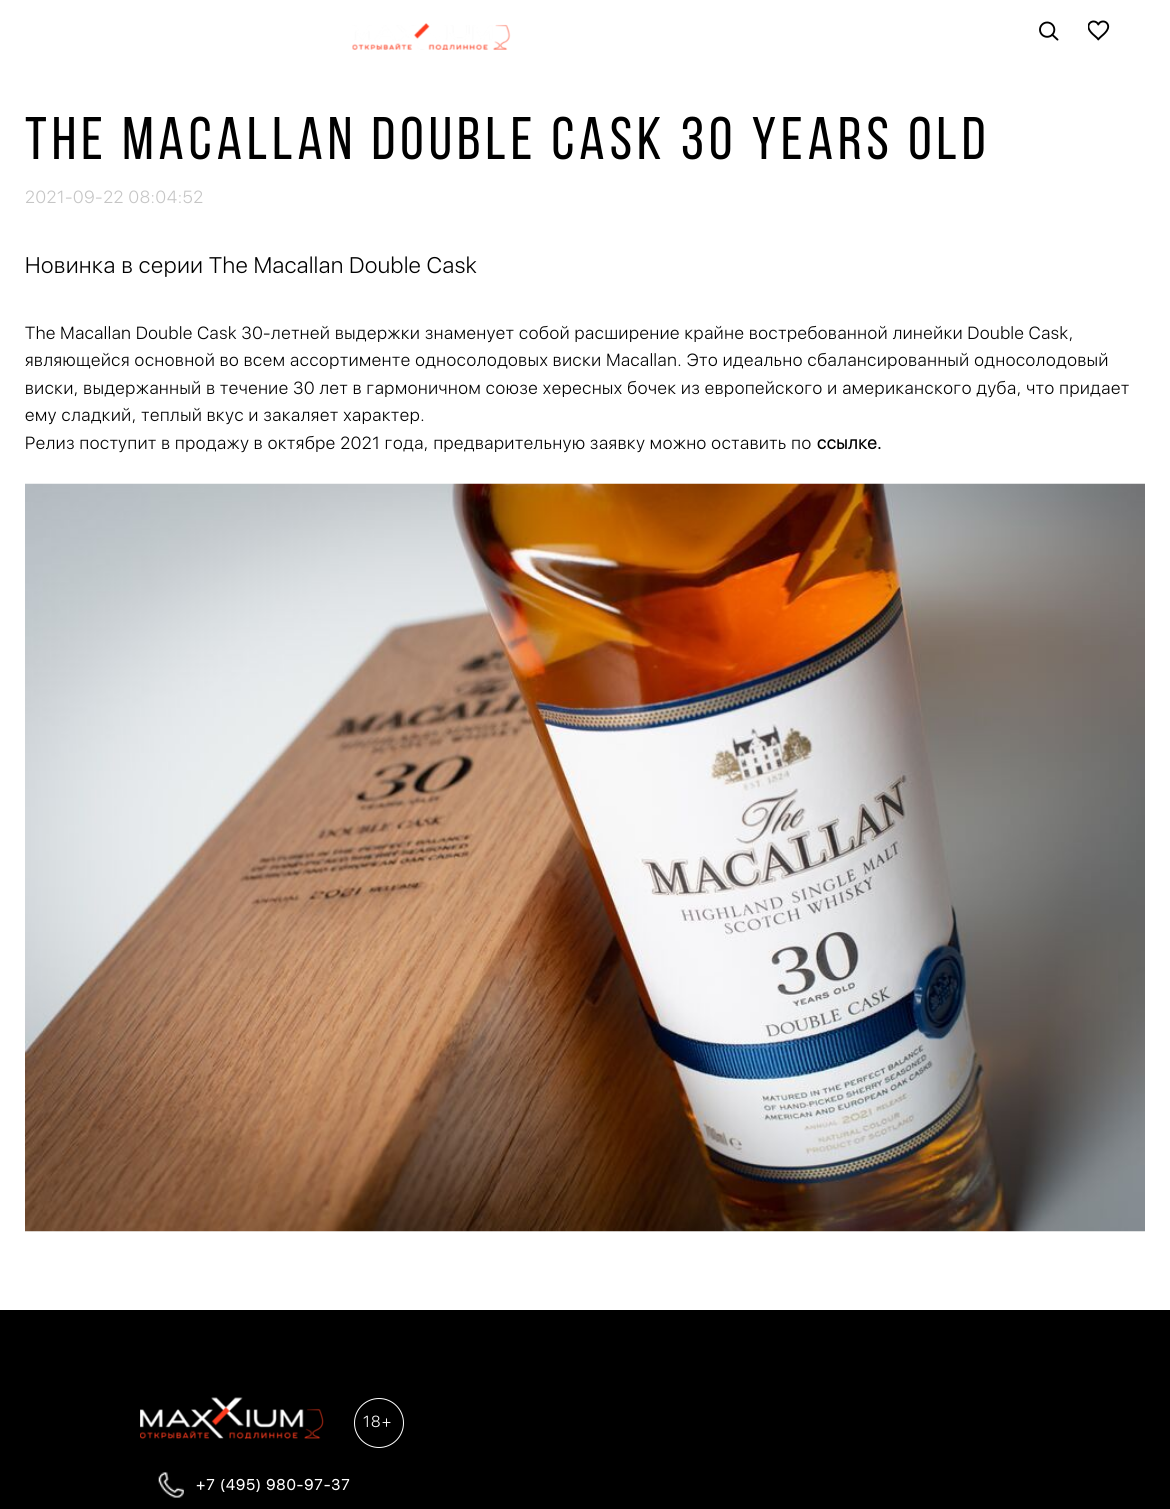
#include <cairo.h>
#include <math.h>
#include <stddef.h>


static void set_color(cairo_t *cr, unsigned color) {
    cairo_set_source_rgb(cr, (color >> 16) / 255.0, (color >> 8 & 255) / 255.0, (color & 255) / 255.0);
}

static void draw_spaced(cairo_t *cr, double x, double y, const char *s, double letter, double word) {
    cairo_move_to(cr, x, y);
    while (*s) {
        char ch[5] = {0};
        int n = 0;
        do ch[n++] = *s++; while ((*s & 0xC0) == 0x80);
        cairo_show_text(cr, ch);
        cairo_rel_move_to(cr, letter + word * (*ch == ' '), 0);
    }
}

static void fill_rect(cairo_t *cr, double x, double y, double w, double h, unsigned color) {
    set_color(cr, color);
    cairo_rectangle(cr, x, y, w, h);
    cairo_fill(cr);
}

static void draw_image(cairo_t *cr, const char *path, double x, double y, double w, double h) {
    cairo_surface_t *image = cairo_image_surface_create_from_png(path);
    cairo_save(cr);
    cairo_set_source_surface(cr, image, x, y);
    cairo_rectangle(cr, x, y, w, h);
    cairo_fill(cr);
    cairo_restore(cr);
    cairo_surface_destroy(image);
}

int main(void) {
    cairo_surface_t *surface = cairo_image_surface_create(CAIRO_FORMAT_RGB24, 1170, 1509);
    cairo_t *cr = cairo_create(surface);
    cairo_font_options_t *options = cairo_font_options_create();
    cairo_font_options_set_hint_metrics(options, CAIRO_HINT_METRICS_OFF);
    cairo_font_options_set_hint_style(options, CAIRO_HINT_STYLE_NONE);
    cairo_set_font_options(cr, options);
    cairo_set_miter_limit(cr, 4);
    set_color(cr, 0x000000);
    cairo_paint(cr);
    fill_rect(cr, 0, 0, 1170, 1310, 0xFFFFFF);
    draw_image(cr, "assets/img1.png", 352, 23, 159, 27);
    draw_image(cr, "assets/img2.png", 1039, 21, 20, 20);
    draw_image(cr, "assets/img3.png", 1088, 20, 22, 21);
    cairo_select_font_face(cr, "Bebas Neue", CAIRO_FONT_SLANT_NORMAL, CAIRO_FONT_WEIGHT_NORMAL);
    cairo_set_font_size(cr, 60);
    set_color(cr, 0x000000);
    draw_spaced(cr, 25, 159, "The Macallan Double Cask 30 Years Old", 5, 0);
    cairo_select_font_face(cr, "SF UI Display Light", CAIRO_FONT_SLANT_NORMAL, CAIRO_FONT_WEIGHT_NORMAL);
    cairo_set_font_size(cr, 17.5);
    set_color(cr, 0xC5C5C5);
    draw_spaced(cr, 25, 203, "2021-09-22 08:04:52", 0.62, 0);
    cairo_set_font_size(cr, 22.5);
    set_color(cr, 0x000000);
    draw_spaced(cr, 25, 273, "Новинка в серии The Macallan Double Cask", 0.62, 0);
    cairo_set_font_size(cr, 17.5);
    draw_spaced(cr, 25, 339, "The Macallan Double Cask 30", 0.62, 0);
    draw_spaced(cr, 263, 339, "-летней выдержки знаменует собой расширение крайне востребованной линейки Double Cask,", 0.62, 0);
    draw_spaced(cr, 25, 366, "являющейся основной во всем ассортименте односолодовых виски Macallan. Это идеально сбалансированный односолодовый", 0.62, 0);
    draw_spaced(cr, 25, 394, "виски, выдержанный в течение 30 лет в гармоничном союзе хересных бочек из европейского и американского дуба, что придает", 0.62, 0);
    draw_spaced(cr, 25, 421, "ему сладкий, теплый вкус и закаляет характер.", 0.62, 0);
    draw_spaced(cr, 25, 449, "Релиз поступит в продажу в октябре 2021 года, предварительную заявку можно оставить по", 0.62, 0);
    cairo_select_font_face(cr, "SF UI Display", CAIRO_FONT_SLANT_NORMAL, CAIRO_FONT_WEIGHT_BOLD);
    draw_spaced(cr, 817, 449, "ссылке", 0.62, 0);
    draw_spaced(cr, 877, 449, ".", 0.62, 0);
    draw_image(cr, "assets/img4.png", 25, 483, 1120, 749);
    draw_image(cr, "assets/img5.png", 140, 1397, 184, 42);
    cairo_arc(cr, 379, 1423, 24.5, 0, 2 * M_PI);
    set_color(cr, 0xFFFFFF);
    cairo_set_line_width(cr, 1);
    cairo_stroke(cr);
    cairo_select_font_face(cr, "SF UI Display Light", CAIRO_FONT_SLANT_NORMAL, CAIRO_FONT_WEIGHT_NORMAL);
    cairo_set_font_size(cr, 16);
    draw_spaced(cr, 363, 1427, "18+", 1.25, 0);
    draw_image(cr, "assets/img6.png", 158, 1472, 26, 26);
    cairo_select_font_face(cr, "SF UI Display", CAIRO_FONT_SLANT_NORMAL, CAIRO_FONT_WEIGHT_BOLD);
    cairo_set_font_size(cr, 15);
    draw_spaced(cr, 196, 1490, "+7 (495) 980-97-37", 1.25, 0);
    cairo_surface_write_to_png(surface, "output.png");
    cairo_font_options_destroy(options);
    cairo_destroy(cr);
    cairo_surface_destroy(surface);
    return 0;
}
